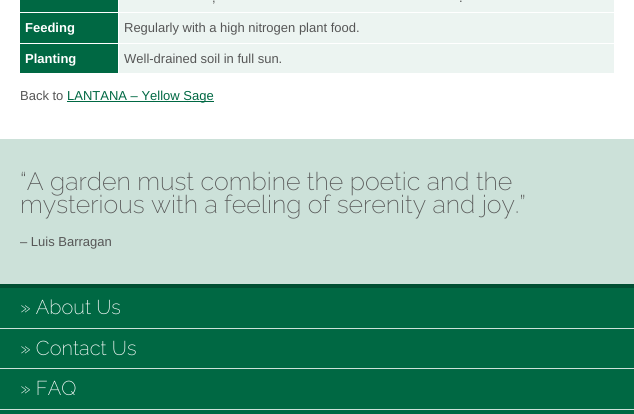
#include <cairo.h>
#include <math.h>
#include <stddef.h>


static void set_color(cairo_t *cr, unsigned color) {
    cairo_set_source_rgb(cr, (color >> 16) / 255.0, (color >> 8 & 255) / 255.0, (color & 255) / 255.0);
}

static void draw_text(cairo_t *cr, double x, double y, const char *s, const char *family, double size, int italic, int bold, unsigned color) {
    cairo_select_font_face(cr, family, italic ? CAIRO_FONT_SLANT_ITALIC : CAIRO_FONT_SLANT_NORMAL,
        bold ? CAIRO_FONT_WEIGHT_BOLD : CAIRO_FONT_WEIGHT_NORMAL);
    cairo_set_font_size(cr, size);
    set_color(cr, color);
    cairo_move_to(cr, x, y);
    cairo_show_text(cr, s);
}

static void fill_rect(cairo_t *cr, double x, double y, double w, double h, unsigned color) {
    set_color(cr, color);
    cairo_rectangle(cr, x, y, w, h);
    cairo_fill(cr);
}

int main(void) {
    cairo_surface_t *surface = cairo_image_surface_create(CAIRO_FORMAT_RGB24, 634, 414);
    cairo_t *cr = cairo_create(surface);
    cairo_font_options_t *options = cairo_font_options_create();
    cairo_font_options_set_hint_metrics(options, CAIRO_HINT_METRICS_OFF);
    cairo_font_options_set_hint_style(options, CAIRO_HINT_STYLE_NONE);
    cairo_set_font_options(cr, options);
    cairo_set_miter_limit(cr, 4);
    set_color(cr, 0xFFFFFF);
    cairo_paint(cr);
    fill_rect(cr, 20, 0, 98, 12, 0x006843);
    fill_rect(cr, 119, 0, 495, 12, 0xECF4F1);
    draw_text(cr, 212, 2, ",", "Liberation Sans", 13, 0, 0, 0x565656);
    draw_text(cr, 459, 2, ".", "Liberation Sans", 13, 0, 0, 0x565656);
    fill_rect(cr, 20, 13, 98, 30, 0x006843);
    draw_text(cr, 25, 32, "Feeding", "Liberation Sans", 13, 0, 1, 0xFFFFFF);
    fill_rect(cr, 119, 13, 495, 30, 0xECF4F1);
    draw_text(cr, 124, 32, "Regularly with a high nitrogen plant food.", "Liberation Sans", 13, 0, 0, 0x565656);
    fill_rect(cr, 20, 44, 98, 29, 0x006843);
    draw_text(cr, 25, 63, "Planting", "Liberation Sans", 13, 0, 1, 0xFFFFFF);
    fill_rect(cr, 119, 44, 495, 29, 0xECF4F1);
    draw_text(cr, 124, 63, "Well-drained soil in full sun.", "Liberation Sans", 13, 0, 0, 0x565656);
    draw_text(cr, 20, 100, "Back to", "Liberation Sans", 13, 0, 0, 0x565656);
    fill_rect(cr, 67, 101, 147, 1, 0x006843);
    draw_text(cr, 67, 100, "LANTANA – Yellow Sage", "Liberation Sans", 13, 0, 0, 0x006843);
    fill_rect(cr, 0, 139, 634, 145, 0xCCE1D9);
    draw_text(cr, 20, 190, "“A garden must combine the poetic and the", "Raleway Thin", 25, 0, 0, 0x565656);
    draw_text(cr, 20, 213, "mysterious with a feeling of serenity and joy.”", "Raleway Thin", 25, 0, 0, 0x565656);
    draw_text(cr, 20, 246, "– Luis Barragan", "Liberation Sans", 13, 0, 0, 0x565656);
    fill_rect(cr, 0, 288, 634, 126, 0x006843);
    fill_rect(cr, 0, 284, 634, 4, 0x004F33);
    fill_rect(cr, 0, 328, 634, 1, 0xCCE1D9);
    draw_text(cr, 20, 314, "» About Us", "Raleway Thin", 20, 0, 0, 0xFFFFFF);
    fill_rect(cr, 0, 368, 634, 1, 0xCCE1D9);
    draw_text(cr, 20, 355, "» Contact Us", "Raleway Thin", 20, 0, 0, 0xFFFFFF);
    fill_rect(cr, 0, 409, 634, 1, 0xCCE1D9);
    draw_text(cr, 20, 395, "» FAQ", "Raleway Thin", 20, 0, 0, 0xFFFFFF);
    cairo_surface_write_to_png(surface, "output.png");
    cairo_font_options_destroy(options);
    cairo_destroy(cr);
    cairo_surface_destroy(surface);
    return 0;
}
